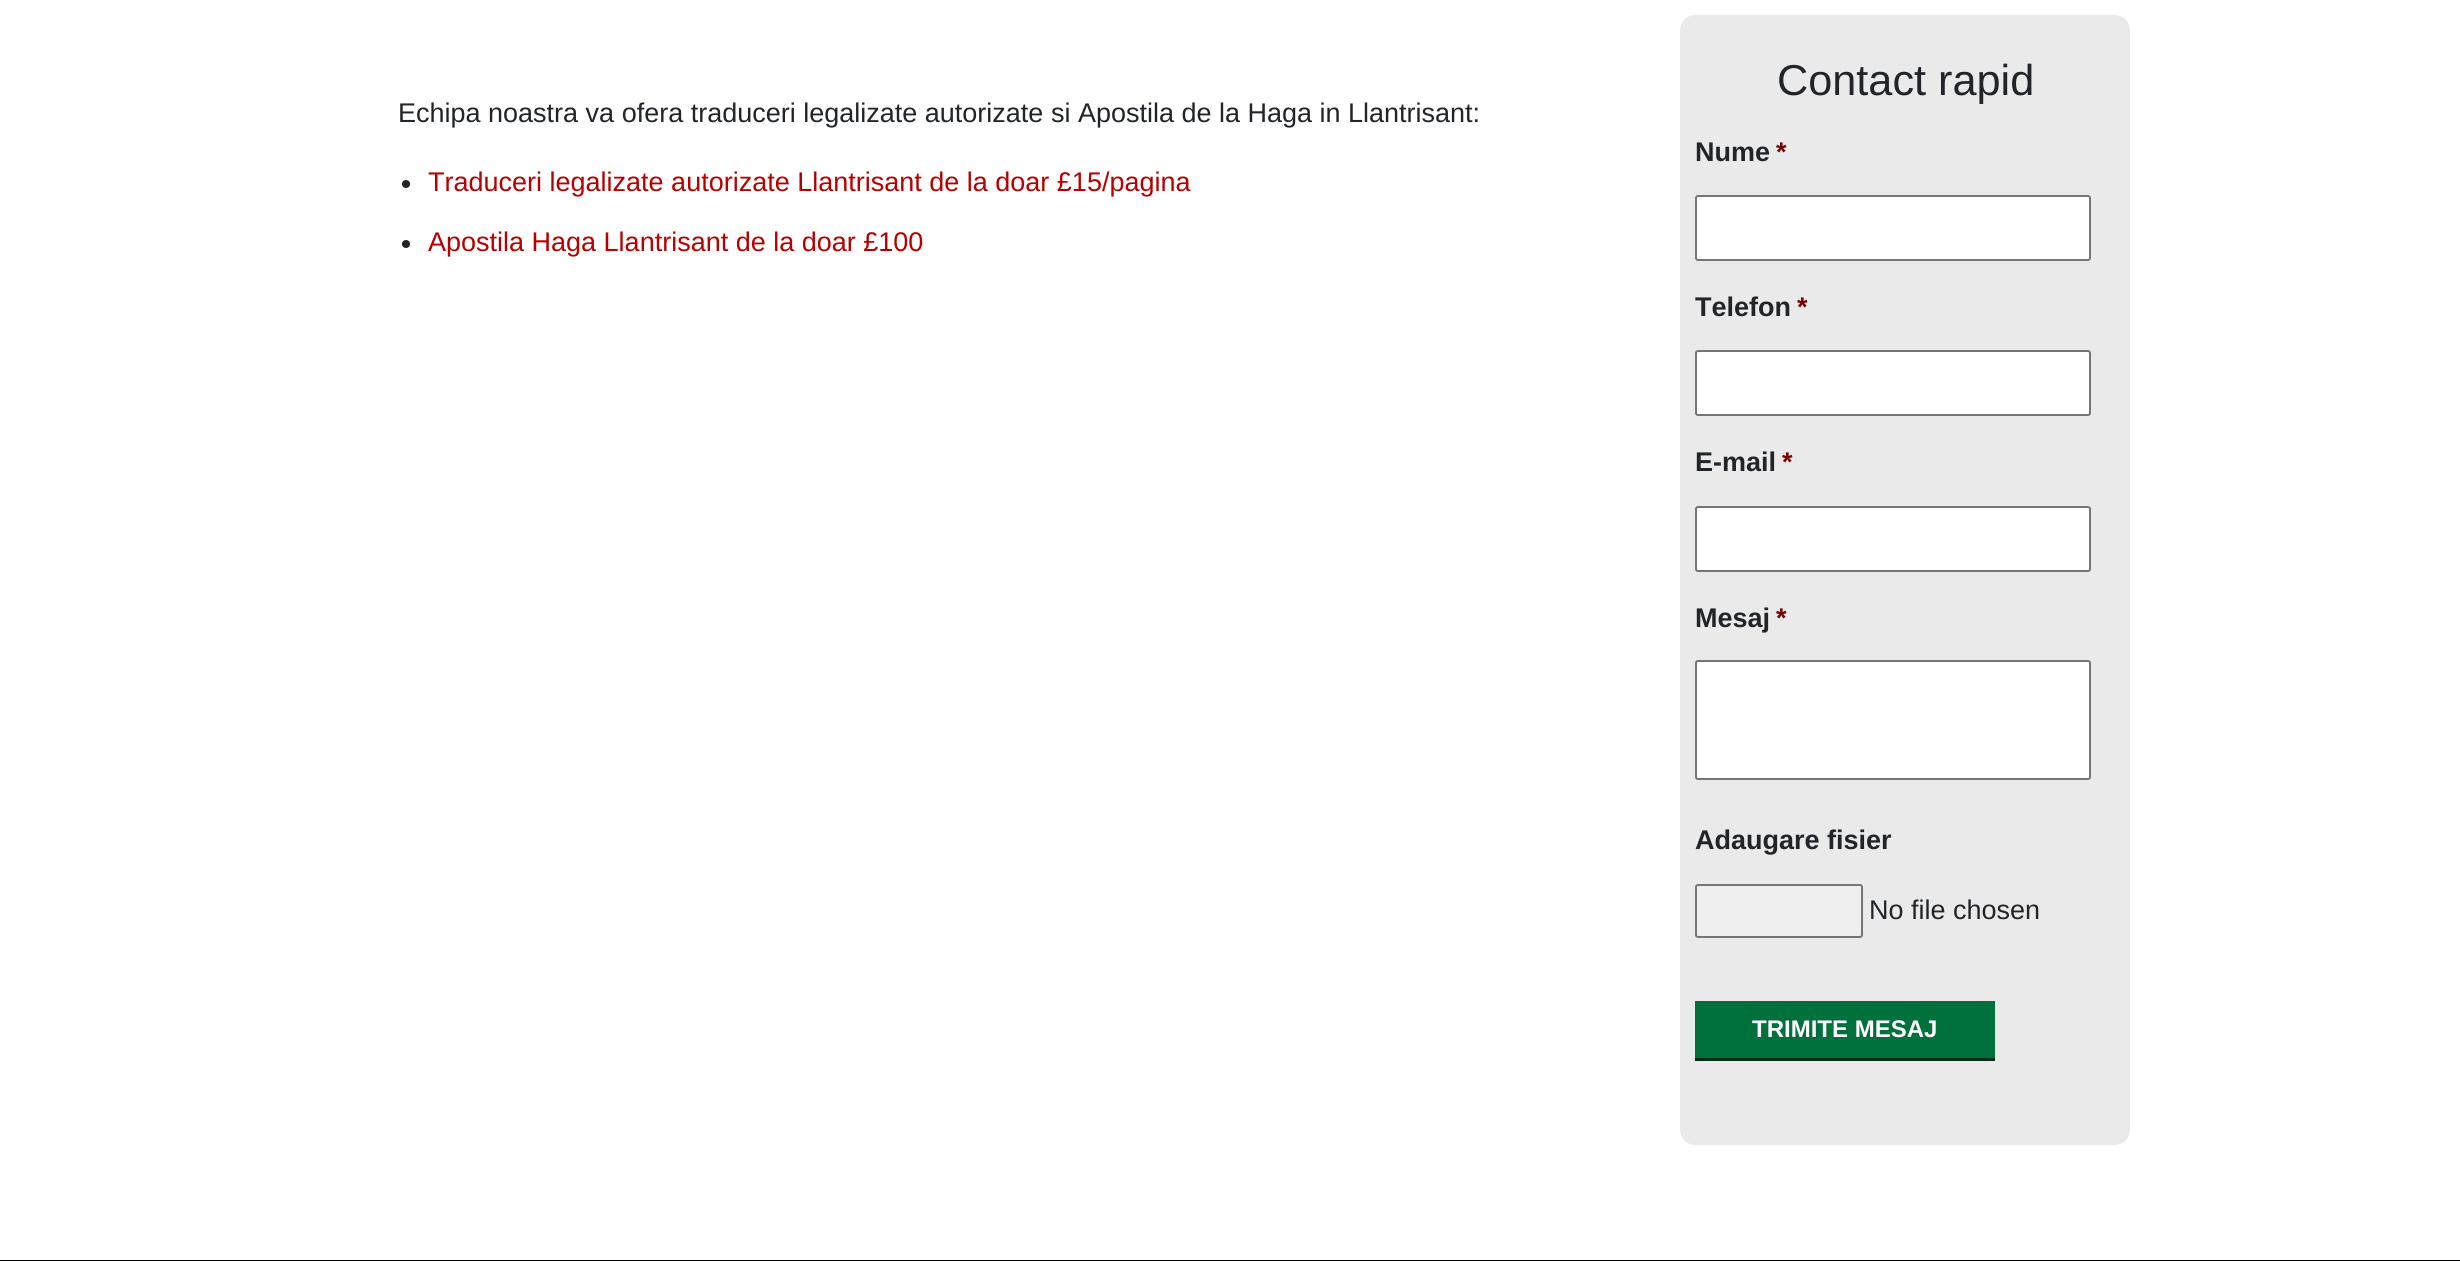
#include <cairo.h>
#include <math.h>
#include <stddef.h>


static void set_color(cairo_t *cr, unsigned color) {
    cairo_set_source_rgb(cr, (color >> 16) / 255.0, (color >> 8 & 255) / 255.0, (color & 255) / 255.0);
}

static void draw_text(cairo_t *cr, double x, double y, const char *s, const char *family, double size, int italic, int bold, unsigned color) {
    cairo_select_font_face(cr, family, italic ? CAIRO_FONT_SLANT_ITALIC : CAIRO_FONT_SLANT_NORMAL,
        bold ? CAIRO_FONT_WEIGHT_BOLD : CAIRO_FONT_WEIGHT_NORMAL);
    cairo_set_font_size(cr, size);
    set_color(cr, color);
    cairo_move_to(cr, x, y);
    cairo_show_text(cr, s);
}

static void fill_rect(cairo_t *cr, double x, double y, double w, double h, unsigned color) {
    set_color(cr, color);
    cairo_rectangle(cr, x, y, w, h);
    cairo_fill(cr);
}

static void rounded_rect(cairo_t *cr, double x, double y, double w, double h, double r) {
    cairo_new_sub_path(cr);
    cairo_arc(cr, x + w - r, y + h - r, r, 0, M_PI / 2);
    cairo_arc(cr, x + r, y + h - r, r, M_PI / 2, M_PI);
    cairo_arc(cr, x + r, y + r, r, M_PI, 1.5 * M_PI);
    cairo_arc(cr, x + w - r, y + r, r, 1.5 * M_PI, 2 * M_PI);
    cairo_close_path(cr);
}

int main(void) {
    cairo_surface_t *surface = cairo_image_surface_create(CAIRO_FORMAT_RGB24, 2460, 1261);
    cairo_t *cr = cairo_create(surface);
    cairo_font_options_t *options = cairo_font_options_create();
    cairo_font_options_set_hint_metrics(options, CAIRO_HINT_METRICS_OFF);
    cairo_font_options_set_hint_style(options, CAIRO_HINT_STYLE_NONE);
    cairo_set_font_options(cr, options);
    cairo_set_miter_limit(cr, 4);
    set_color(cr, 0xFFFFFF);
    cairo_paint(cr);
    draw_text(cr, 398, 122, "Echipa noastra va ofera traduceri legalizate autorizate si Apostila de la Haga in Llantrisant:", "Liberation Sans", 27, 0, 0, 0x212529);
    cairo_new_path(cr);
    cairo_arc(cr, 406, 184, 4, 0, 2 * M_PI);
    cairo_fill(cr);
    draw_text(cr, 428, 191, "Traduceri legalizate autorizate Llantrisant de la doar £15/pagina", "Liberation Sans", 27, 0, 0, 0xB70000);
    set_color(cr, 0x212529);
    cairo_new_path(cr);
    cairo_arc(cr, 406, 244, 4, 0, 2 * M_PI);
    cairo_fill(cr);
    draw_text(cr, 428, 251, "Apostila Haga Llantrisant de la doar £100", "Liberation Sans", 27, 0, 0, 0xB70000);
    set_color(cr, 0xEAEAEA);
    rounded_rect(cr, 1680, 15, 450, 1130, 15);
    cairo_fill(cr);
    draw_text(cr, 1777, 95, "Contact rapid", "Liberation Sans", 43.25, 0, 0, 0x212529);
    draw_text(cr, 1695, 161, "Nume", "Liberation Sans", 27, 0, 1, 0x212529);
    draw_text(cr, 1776, 161, "*", "Liberation Sans", 27, 0, 1, 0x790000);
    set_color(cr, 0xFFFFFF);
    rounded_rect(cr, 1696, 196, 394, 64, 2);
    cairo_fill_preserve(cr);
    set_color(cr, 0x767676);
    cairo_stroke(cr);
    draw_text(cr, 1695, 316, "Telefon", "Liberation Sans", 27, 0, 1, 0x212529);
    draw_text(cr, 1797, 316, "*", "Liberation Sans", 27, 0, 1, 0x790000);
    set_color(cr, 0xFFFFFF);
    rounded_rect(cr, 1696, 351, 394, 64, 2);
    cairo_fill_preserve(cr);
    set_color(cr, 0x767676);
    cairo_stroke(cr);
    draw_text(cr, 1695, 471, "E-mail", "Liberation Sans", 27, 0, 1, 0x212529);
    draw_text(cr, 1782, 471, "*", "Liberation Sans", 27, 0, 1, 0x790000);
    set_color(cr, 0xFFFFFF);
    rounded_rect(cr, 1696, 507, 394, 64, 2);
    cairo_fill_preserve(cr);
    set_color(cr, 0x767676);
    cairo_stroke(cr);
    draw_text(cr, 1695, 627, "Mesaj", "Liberation Sans", 27, 0, 1, 0x212529);
    draw_text(cr, 1776, 627, "*", "Liberation Sans", 27, 0, 1, 0x790000);
    set_color(cr, 0xFFFFFF);
    rounded_rect(cr, 1696, 661, 394, 118, 2);
    cairo_fill_preserve(cr);
    set_color(cr, 0x767676);
    cairo_stroke(cr);
    draw_text(cr, 1695, 849, "Adaugare fisier", "Liberation Sans", 27, 0, 1, 0x212529);
    set_color(cr, 0xEFEFEF);
    rounded_rect(cr, 1696, 885, 166, 52, 2);
    cairo_fill_preserve(cr);
    set_color(cr, 0x767676);
    cairo_stroke(cr);
    draw_text(cr, 1869, 919, "No file chosen", "Liberation Sans", 27, 0, 0, 0x212529);
    fill_rect(cr, 1695, 1058, 300, 3, 0x002D18);
    fill_rect(cr, 1695, 1001, 300, 57, 0x00703C);
    draw_text(cr, 1752, 1037, "TRIMITE MESAJ", "Liberation Sans", 24, 0, 1, 0xFFFFFF);
    fill_rect(cr, 0, 1260, 2460, 1, 0x000000);
    cairo_surface_write_to_png(surface, "output.png");
    cairo_font_options_destroy(options);
    cairo_destroy(cr);
    cairo_surface_destroy(surface);
    return 0;
}
